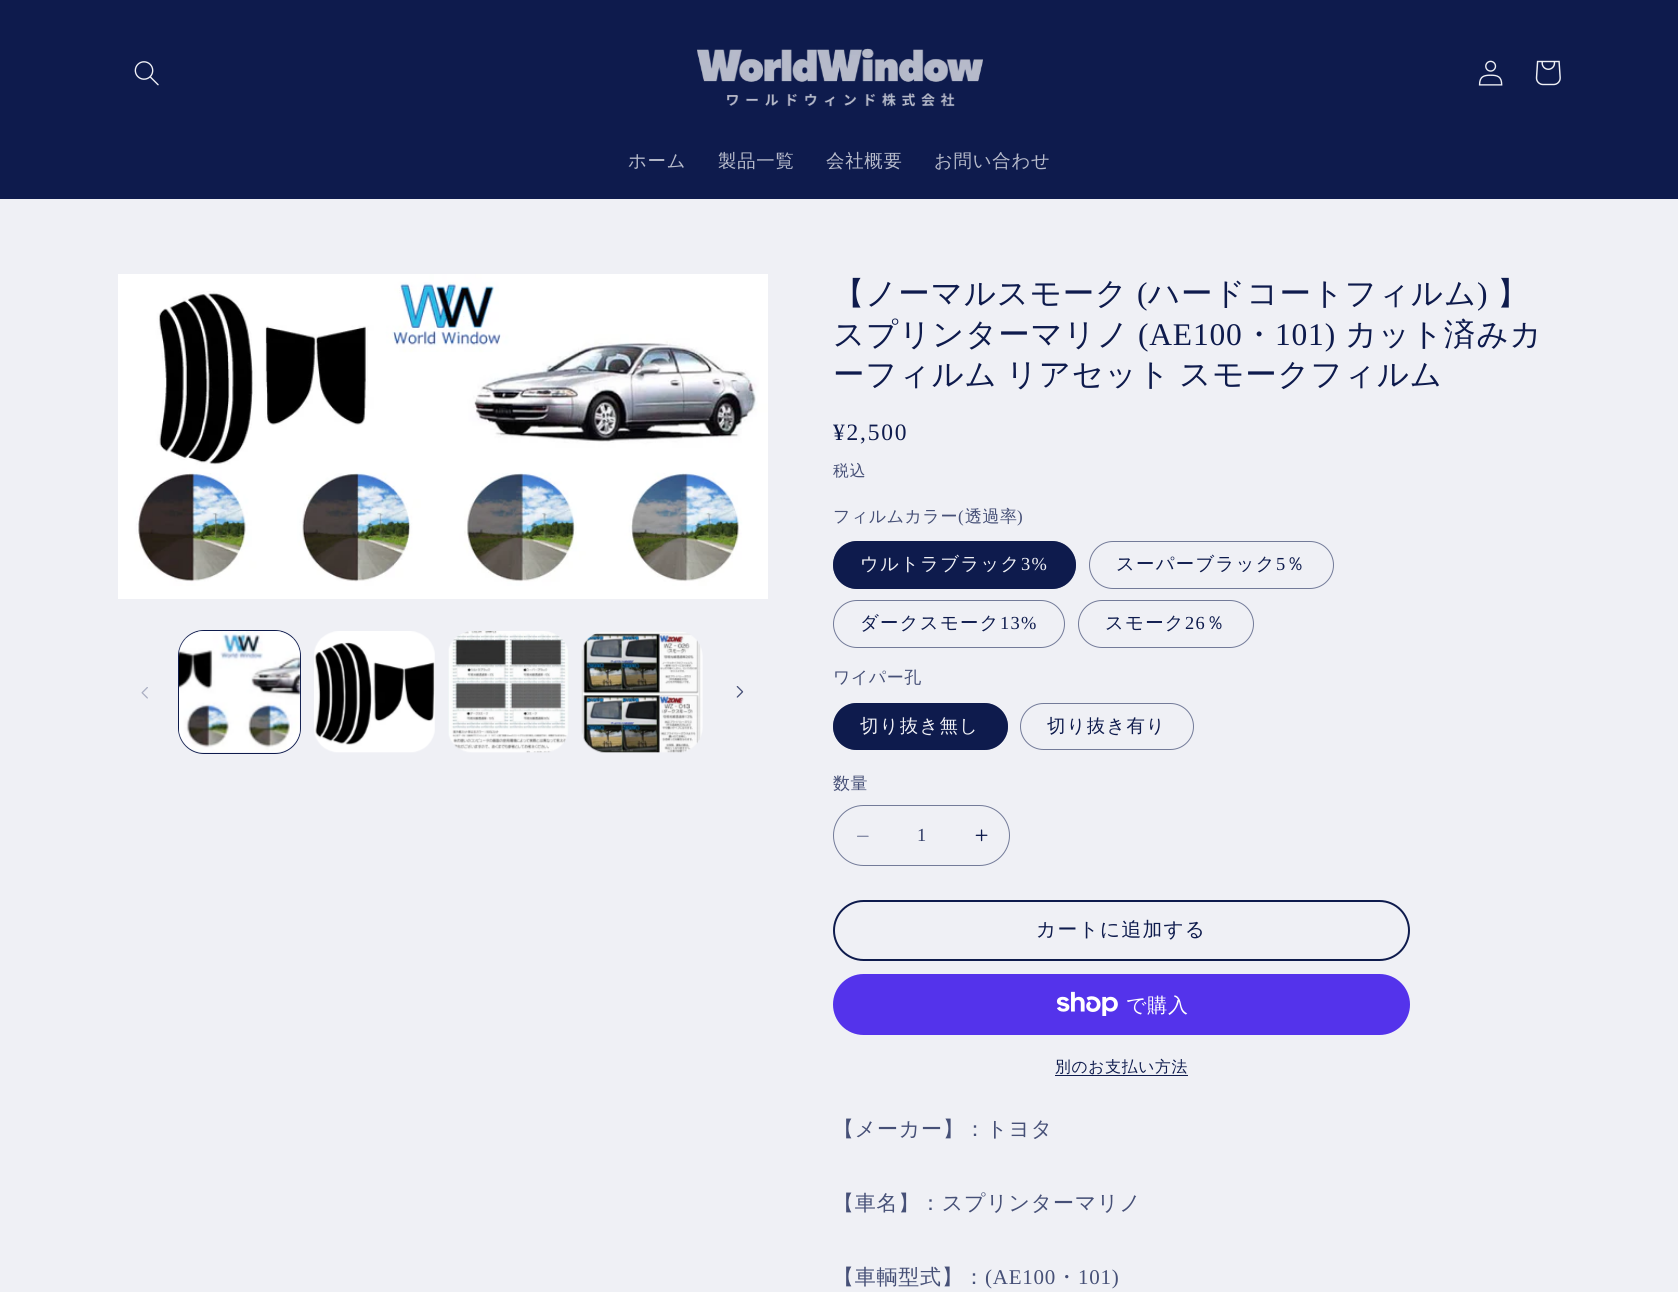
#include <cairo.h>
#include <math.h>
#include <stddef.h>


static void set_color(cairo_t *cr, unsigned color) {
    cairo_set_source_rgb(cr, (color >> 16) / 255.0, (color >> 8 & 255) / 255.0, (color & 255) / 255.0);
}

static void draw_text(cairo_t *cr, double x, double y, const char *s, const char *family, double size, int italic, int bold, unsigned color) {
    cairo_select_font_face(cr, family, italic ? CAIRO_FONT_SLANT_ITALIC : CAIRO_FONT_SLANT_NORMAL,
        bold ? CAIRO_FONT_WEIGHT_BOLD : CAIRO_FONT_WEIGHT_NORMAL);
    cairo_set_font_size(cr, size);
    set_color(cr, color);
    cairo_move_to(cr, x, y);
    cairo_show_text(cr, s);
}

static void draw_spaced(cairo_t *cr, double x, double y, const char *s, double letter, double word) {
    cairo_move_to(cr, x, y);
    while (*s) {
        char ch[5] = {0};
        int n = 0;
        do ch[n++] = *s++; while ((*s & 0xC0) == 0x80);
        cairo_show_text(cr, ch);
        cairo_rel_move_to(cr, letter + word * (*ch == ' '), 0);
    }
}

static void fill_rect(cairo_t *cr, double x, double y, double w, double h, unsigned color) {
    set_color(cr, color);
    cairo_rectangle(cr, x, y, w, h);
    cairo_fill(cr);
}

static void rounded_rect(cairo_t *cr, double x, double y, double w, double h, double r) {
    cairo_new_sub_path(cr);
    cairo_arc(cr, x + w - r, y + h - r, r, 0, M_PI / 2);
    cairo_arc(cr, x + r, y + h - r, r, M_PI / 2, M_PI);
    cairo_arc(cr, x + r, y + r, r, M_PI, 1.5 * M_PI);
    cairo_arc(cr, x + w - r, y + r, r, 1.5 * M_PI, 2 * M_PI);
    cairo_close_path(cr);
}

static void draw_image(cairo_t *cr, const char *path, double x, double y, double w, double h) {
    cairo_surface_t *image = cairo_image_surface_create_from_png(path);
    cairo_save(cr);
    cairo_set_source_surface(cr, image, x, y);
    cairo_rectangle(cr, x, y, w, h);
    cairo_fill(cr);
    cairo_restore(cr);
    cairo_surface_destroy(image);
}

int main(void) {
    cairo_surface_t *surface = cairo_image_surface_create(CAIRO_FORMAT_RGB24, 1678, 1292);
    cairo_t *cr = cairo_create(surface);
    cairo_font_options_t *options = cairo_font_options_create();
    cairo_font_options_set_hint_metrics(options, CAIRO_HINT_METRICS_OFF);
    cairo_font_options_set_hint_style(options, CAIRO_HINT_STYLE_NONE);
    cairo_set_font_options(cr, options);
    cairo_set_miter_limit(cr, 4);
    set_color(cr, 0xEFF0F5);
    cairo_paint(cr);
    fill_rect(cr, 0, 0, 1678, 199, 0x0E1B4D);
    draw_image(cr, "assets/img1.png", 134, 61, 25, 25);
    draw_image(cr, "assets/img2.png", 697, 48, 286, 59);
    draw_image(cr, "assets/img3.png", 1478, 60, 25, 26);
    draw_image(cr, "assets/img4.png", 1535, 60, 26, 26);
    cairo_select_font_face(cr, "WenQuanYi Zen Hei Medium", CAIRO_FONT_SLANT_NORMAL, CAIRO_FONT_WEIGHT_NORMAL);
    cairo_set_font_size(cr, 18.4);
    set_color(cr, 0xB7BBCB);
    draw_spaced(cr, 628, 167, "ホーム", 0.75, 0);
    draw_spaced(cr, 718, 167, "製品一覧", 0.75, 0);
    draw_spaced(cr, 826, 167, "会社概要", 0.75, 0);
    draw_spaced(cr, 934, 167, "お問い合わせ", 0.75, 0);
    draw_image(cr, "assets/img5.png", 118, 274, 650, 325);
    draw_image(cr, "assets/img6.png", 141, 687, 7, 12);
    rounded_rect(cr, 178.5, 630.5, 122, 123, 25.5);
    set_color(cr, 0x0E1B4D);
    cairo_set_line_width(cr, 1);
    cairo_stroke(cr);
    draw_image(cr, "assets/img7.png", 179, 631, 122, 122);
    draw_image(cr, "assets/img8.png", 314, 631, 121, 122);
    draw_image(cr, "assets/img9.png", 448, 631, 121, 122);
    draw_image(cr, "assets/img10.png", 581, 631, 122, 122);
    draw_image(cr, "assets/img11.png", 736, 686, 8, 12);
    cairo_set_font_size(cr, 31.5);
    draw_spaced(cr, 833, 304, "【ノーマルスモーク", 0.8, 0);
    cairo_select_font_face(cr, "Liberation Serif", CAIRO_FONT_SLANT_NORMAL, CAIRO_FONT_WEIGHT_NORMAL);
    draw_spaced(cr, 1137, 304, "(", 0.8, 0);
    cairo_select_font_face(cr, "WenQuanYi Zen Hei Medium", CAIRO_FONT_SLANT_NORMAL, CAIRO_FONT_WEIGHT_NORMAL);
    draw_spaced(cr, 1148, 304, "ハードコートフィルム", 0.8, 0);
    cairo_select_font_face(cr, "Liberation Serif", CAIRO_FONT_SLANT_NORMAL, CAIRO_FONT_WEIGHT_NORMAL);
    draw_spaced(cr, 1477, 304, ")", 0.8, 0);
    cairo_select_font_face(cr, "WenQuanYi Zen Hei Medium", CAIRO_FONT_SLANT_NORMAL, CAIRO_FONT_WEIGHT_NORMAL);
    draw_spaced(cr, 1497, 304, "】", 0.8, 0);
    draw_spaced(cr, 833, 345, "スプリンターマリノ", 0.8, 0);
    cairo_select_font_face(cr, "Liberation Serif", CAIRO_FONT_SLANT_NORMAL, CAIRO_FONT_WEIGHT_NORMAL);
    draw_spaced(cr, 1138, 345, "(AE100", 0.8, 0);
    cairo_select_font_face(cr, "WenQuanYi Zen Hei Medium", CAIRO_FONT_SLANT_NORMAL, CAIRO_FONT_WEIGHT_NORMAL);
    draw_spaced(cr, 1243, 345, "・", 0.8, 0);
    cairo_select_font_face(cr, "Liberation Serif", CAIRO_FONT_SLANT_NORMAL, CAIRO_FONT_WEIGHT_NORMAL);
    draw_spaced(cr, 1275, 345, "101)", 0.8, 0);
    cairo_select_font_face(cr, "WenQuanYi Zen Hei Medium", CAIRO_FONT_SLANT_NORMAL, CAIRO_FONT_WEIGHT_NORMAL);
    draw_spaced(cr, 1345, 345, "カット済みカ", 0.8, 0);
    draw_spaced(cr, 833, 385, "ーフィルム リアセット スモークフィルム", 0.8, -2);
    cairo_select_font_face(cr, "Liberation Serif", CAIRO_FONT_SLANT_NORMAL, CAIRO_FONT_WEIGHT_NORMAL);
    cairo_set_font_size(cr, 23.5);
    draw_spaced(cr, 833, 440, "¥2,500", 1.75, 0);
    cairo_select_font_face(cr, "WenQuanYi Zen Hei Medium", CAIRO_FONT_SLANT_NORMAL, CAIRO_FONT_WEIGHT_NORMAL);
    cairo_set_font_size(cr, 15.75);
    set_color(cr, 0x465077);
    draw_spaced(cr, 833, 476, "税込", 1, 0);
    cairo_set_font_size(cr, 17);
    draw_spaced(cr, 833, 522, "フィルムカラー", 0.5, 0);
    cairo_select_font_face(cr, "Liberation Serif", CAIRO_FONT_SLANT_NORMAL, CAIRO_FONT_WEIGHT_NORMAL);
    draw_spaced(cr, 958, 522, "(", 0.5, 0);
    cairo_select_font_face(cr, "WenQuanYi Zen Hei Medium", CAIRO_FONT_SLANT_NORMAL, CAIRO_FONT_WEIGHT_NORMAL);
    draw_spaced(cr, 965, 522, "透過率", 0.5, 0);
    cairo_select_font_face(cr, "Liberation Serif", CAIRO_FONT_SLANT_NORMAL, CAIRO_FONT_WEIGHT_NORMAL);
    draw_spaced(cr, 1017, 522, ")", 0.5, 0);
    set_color(cr, 0x0E1B4D);
    rounded_rect(cr, 833, 541, 243, 48, 24);
    cairo_fill(cr);
    rounded_rect(cr, 833.5, 541.5, 242, 47, 23.5);
    cairo_set_source_rgba(cr, 0.055, 0.106, 0.302, 0.55);
    cairo_stroke(cr);
    cairo_select_font_face(cr, "WenQuanYi Zen Hei Medium", CAIRO_FONT_SLANT_NORMAL, CAIRO_FONT_WEIGHT_NORMAL);
    cairo_set_font_size(cr, 18.4);
    set_color(cr, 0xEFF0F5);
    draw_spaced(cr, 860, 570, "ウルトラブラック", 1.25, 0);
    cairo_select_font_face(cr, "Liberation Serif", CAIRO_FONT_SLANT_NORMAL, CAIRO_FONT_WEIGHT_NORMAL);
    draw_spaced(cr, 1021, 570, "3%", 1.25, 0);
    rounded_rect(cr, 1089.5, 541.5, 244, 47, 23.5);
    set_color(cr, 0x737B99);
    cairo_stroke(cr);
    cairo_select_font_face(cr, "WenQuanYi Zen Hei Medium", CAIRO_FONT_SLANT_NORMAL, CAIRO_FONT_WEIGHT_NORMAL);
    set_color(cr, 0x0E1B4D);
    draw_spaced(cr, 1116, 570, "スーパーブラック", 1.25, 0);
    cairo_select_font_face(cr, "Liberation Serif", CAIRO_FONT_SLANT_NORMAL, CAIRO_FONT_WEIGHT_NORMAL);
    draw_spaced(cr, 1276, 570, "5", 1.25, 0);
    cairo_select_font_face(cr, "WenQuanYi Zen Hei Medium", CAIRO_FONT_SLANT_NORMAL, CAIRO_FONT_WEIGHT_NORMAL);
    draw_spaced(cr, 1286, 570, "％", 1.25, 0);
    rounded_rect(cr, 833.5, 600.5, 231, 47, 23.5);
    set_color(cr, 0x737B99);
    cairo_stroke(cr);
    set_color(cr, 0x0E1B4D);
    draw_spaced(cr, 860, 629, "ダークスモーク", 1.25, 0);
    cairo_select_font_face(cr, "Liberation Serif", CAIRO_FONT_SLANT_NORMAL, CAIRO_FONT_WEIGHT_NORMAL);
    draw_spaced(cr, 1000, 629, "13%", 1.25, 0);
    rounded_rect(cr, 1078.5, 600.5, 175, 47, 23.5);
    set_color(cr, 0x737B99);
    cairo_stroke(cr);
    cairo_select_font_face(cr, "WenQuanYi Zen Hei Medium", CAIRO_FONT_SLANT_NORMAL, CAIRO_FONT_WEIGHT_NORMAL);
    set_color(cr, 0x0E1B4D);
    draw_spaced(cr, 1105, 629, "スモーク", 1.25, 0);
    cairo_select_font_face(cr, "Liberation Serif", CAIRO_FONT_SLANT_NORMAL, CAIRO_FONT_WEIGHT_NORMAL);
    draw_spaced(cr, 1185, 629, "26", 1.25, 0);
    cairo_select_font_face(cr, "WenQuanYi Zen Hei Medium", CAIRO_FONT_SLANT_NORMAL, CAIRO_FONT_WEIGHT_NORMAL);
    draw_spaced(cr, 1206, 629, "％", 1.25, 0);
    cairo_set_font_size(cr, 17);
    set_color(cr, 0x465077);
    draw_spaced(cr, 833, 683, "ワイパー孔", 0.5, 0);
    set_color(cr, 0x0E1B4D);
    rounded_rect(cr, 833, 703, 175, 47, 23.5);
    cairo_fill(cr);
    rounded_rect(cr, 833.5, 703.5, 174, 46, 23);
    cairo_set_source_rgba(cr, 0.055, 0.106, 0.302, 0.55);
    cairo_stroke(cr);
    cairo_set_font_size(cr, 18.4);
    set_color(cr, 0xEFF0F5);
    draw_spaced(cr, 860, 732, "切り抜き無し", 1.25, 0);
    rounded_rect(cr, 1020.5, 703.5, 173, 46, 23);
    set_color(cr, 0x737B99);
    cairo_stroke(cr);
    set_color(cr, 0x0E1B4D);
    draw_spaced(cr, 1047, 732, "切り抜き有り", 1.25, 0);
    cairo_set_font_size(cr, 17);
    set_color(cr, 0x465077);
    draw_spaced(cr, 833, 789, "数量", 0.5, 0);
    draw_image(cr, "assets/img12.png", 857, 835, 12, 2);
    draw_image(cr, "assets/img13.png", 975, 829, 13, 13);
    rounded_rect(cr, 833.5, 805.5, 176, 60, 30);
    set_color(cr, 0x737B99);
    cairo_stroke(cr);
    draw_text(cr, 917, 841, "1", "Liberation Serif", 18.4, 0, 0, 0x303B66);
    rounded_rect(cr, 834, 901, 575, 59, 29.5);
    set_color(cr, 0x0E1B4D);
    cairo_set_line_width(cr, 2);
    cairo_stroke(cr);
    cairo_select_font_face(cr, "WenQuanYi Zen Hei Medium", CAIRO_FONT_SLANT_NORMAL, CAIRO_FONT_WEIGHT_NORMAL);
    cairo_set_font_size(cr, 19.75);
    draw_spaced(cr, 1036, 936, "カートに追加する", 1.25, 0);
    set_color(cr, 0x5433EB);
    rounded_rect(cr, 833, 974, 577, 61, 30.5);
    cairo_fill(cr);
    draw_image(cr, "assets/img14.png", 1056, 991, 62, 25);
    cairo_set_font_size(cr, 20);
    set_color(cr, 0xFFFFFF);
    draw_spaced(cr, 1126, 1012, "で購入", 0.75, 0);
    cairo_set_font_size(cr, 15.75);
    set_color(cr, 0x0E1B4D);
    draw_spaced(cr, 1055, 1072, "別のお支払い方法", 0.75, 0);
    fill_rect(cr, 1055, 1075, 133, 1, 0x0E1B4D);
    cairo_set_font_size(cr, 21);
    set_color(cr, 0x465077);
    draw_spaced(cr, 833, 1136, "【メーカー】：トヨタ", 0.75, 0);
    draw_spaced(cr, 833, 1210, "【車名】：スプリンターマリノ", 0.75, 0);
    draw_spaced(cr, 833, 1284, "【車輌型式】：", 0.75, 0);
    cairo_select_font_face(cr, "Liberation Serif", CAIRO_FONT_SLANT_NORMAL, CAIRO_FONT_WEIGHT_NORMAL);
    draw_spaced(cr, 985, 1284, "(AE100", 0.75, 0);
    cairo_select_font_face(cr, "WenQuanYi Zen Hei Medium", CAIRO_FONT_SLANT_NORMAL, CAIRO_FONT_WEIGHT_NORMAL);
    draw_spaced(cr, 1056, 1284, "・", 0.75, 0);
    cairo_select_font_face(cr, "Liberation Serif", CAIRO_FONT_SLANT_NORMAL, CAIRO_FONT_WEIGHT_NORMAL);
    draw_spaced(cr, 1078, 1284, "101)", 0.75, 0);
    cairo_surface_write_to_png(surface, "output.png");
    cairo_font_options_destroy(options);
    cairo_destroy(cr);
    cairo_surface_destroy(surface);
    return 0;
}
